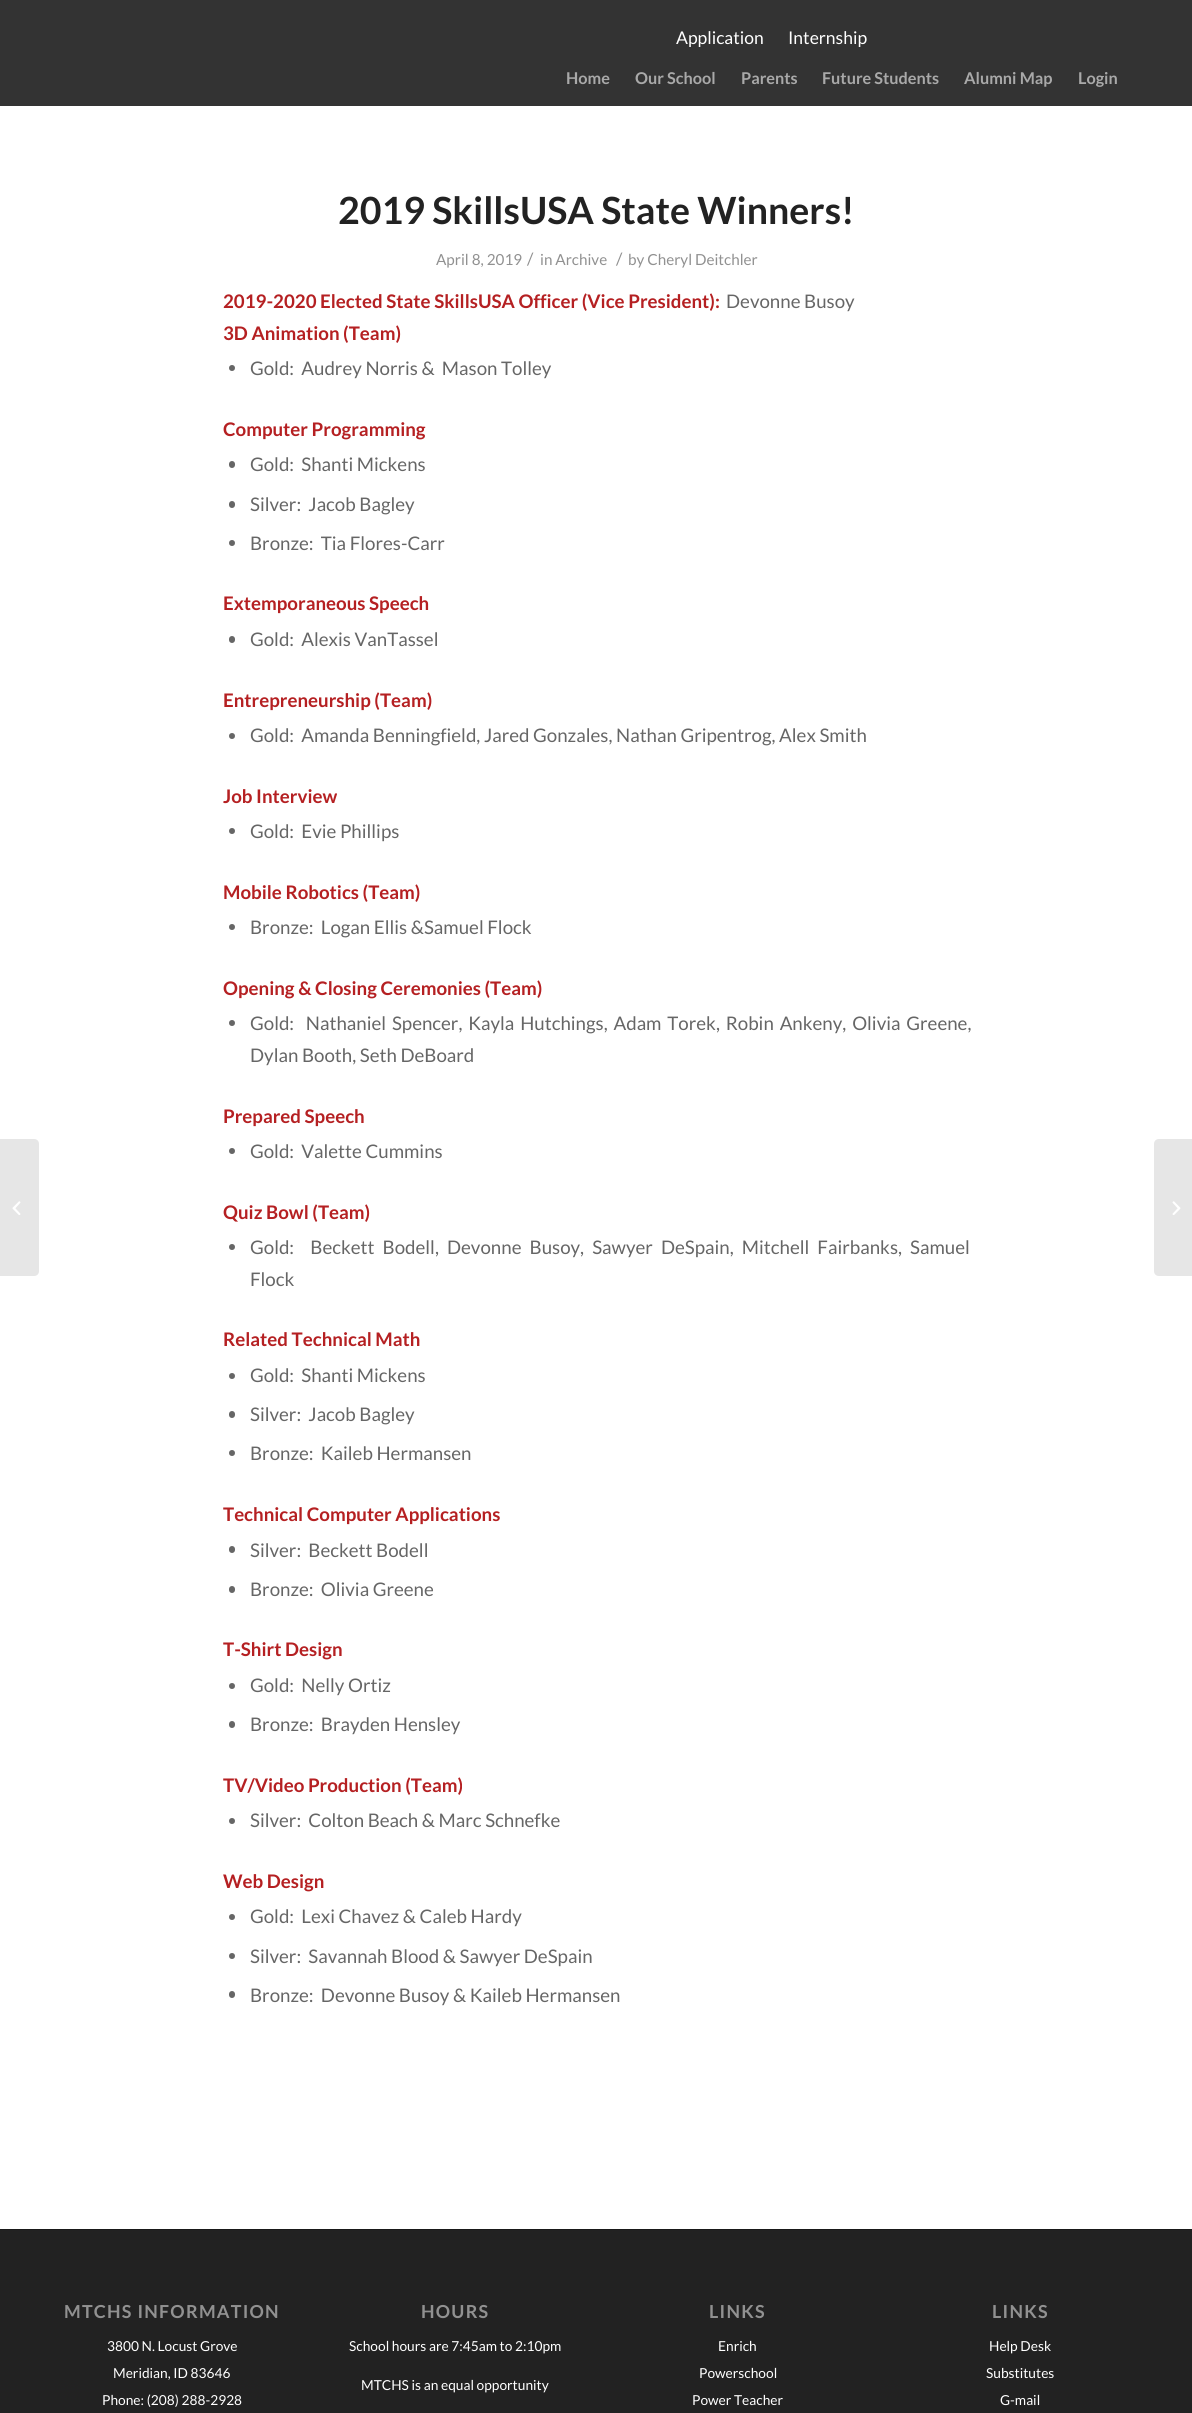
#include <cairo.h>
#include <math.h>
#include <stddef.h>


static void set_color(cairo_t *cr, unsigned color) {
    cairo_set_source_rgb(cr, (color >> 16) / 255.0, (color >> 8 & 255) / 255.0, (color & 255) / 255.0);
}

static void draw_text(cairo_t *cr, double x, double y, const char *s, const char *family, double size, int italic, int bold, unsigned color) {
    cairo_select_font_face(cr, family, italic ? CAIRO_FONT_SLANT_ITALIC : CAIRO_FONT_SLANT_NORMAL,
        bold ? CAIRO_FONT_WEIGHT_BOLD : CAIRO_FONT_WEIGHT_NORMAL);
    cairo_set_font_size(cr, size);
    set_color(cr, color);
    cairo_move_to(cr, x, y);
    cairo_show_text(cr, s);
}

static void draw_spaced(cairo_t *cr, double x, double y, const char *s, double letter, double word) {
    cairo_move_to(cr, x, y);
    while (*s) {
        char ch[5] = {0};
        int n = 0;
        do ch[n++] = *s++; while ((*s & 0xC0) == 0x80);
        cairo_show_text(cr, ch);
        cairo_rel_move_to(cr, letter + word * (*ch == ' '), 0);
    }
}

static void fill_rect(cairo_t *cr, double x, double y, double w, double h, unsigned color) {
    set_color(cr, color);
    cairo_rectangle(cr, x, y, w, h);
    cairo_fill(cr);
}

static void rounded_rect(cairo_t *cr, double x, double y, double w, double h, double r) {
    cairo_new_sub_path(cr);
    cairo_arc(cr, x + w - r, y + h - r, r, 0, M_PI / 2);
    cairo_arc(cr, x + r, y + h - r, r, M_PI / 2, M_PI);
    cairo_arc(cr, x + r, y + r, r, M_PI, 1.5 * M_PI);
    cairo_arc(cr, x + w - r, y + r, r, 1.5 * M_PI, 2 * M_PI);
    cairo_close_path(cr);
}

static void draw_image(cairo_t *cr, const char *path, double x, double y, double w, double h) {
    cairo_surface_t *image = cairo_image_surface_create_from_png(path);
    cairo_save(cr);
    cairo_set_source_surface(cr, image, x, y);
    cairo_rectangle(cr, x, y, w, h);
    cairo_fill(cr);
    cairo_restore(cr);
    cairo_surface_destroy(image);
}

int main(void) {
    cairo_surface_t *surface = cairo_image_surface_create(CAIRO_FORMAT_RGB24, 1192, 2413);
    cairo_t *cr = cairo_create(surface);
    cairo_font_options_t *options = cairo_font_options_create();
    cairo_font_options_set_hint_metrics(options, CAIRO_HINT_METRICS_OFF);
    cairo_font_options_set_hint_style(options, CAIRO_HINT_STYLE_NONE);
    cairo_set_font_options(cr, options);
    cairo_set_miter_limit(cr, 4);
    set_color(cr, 0xFFFFFF);
    cairo_paint(cr);
    fill_rect(cr, 0, 0, 1192, 106, 0x333333);
    draw_text(cr, 676, 44, "Application", "Lato", 17.5, 0, 0, 0xFFFFFF);
    draw_text(cr, 788, 44, "Internship", "Lato", 17.5, 0, 0, 0xFFFFFF);
    draw_text(cr, 566, 84, "Home", "Lato", 16.25, 0, 1, 0xA9A9A9);
    draw_text(cr, 635, 84, "Our School", "Lato", 16.25, 0, 1, 0xA9A9A9);
    draw_text(cr, 741, 84, "Parents", "Lato", 16.25, 0, 1, 0xA9A9A9);
    draw_text(cr, 822, 84, "Future Students", "Lato", 16.25, 0, 1, 0xA9A9A9);
    draw_text(cr, 964, 84, "Alumni Map", "Lato", 16.25, 0, 1, 0xA9A9A9);
    draw_text(cr, 1078, 84, "Login", "Lato", 16.25, 0, 1, 0xA9A9A9);
    set_color(cr, 0xE6E6E6);
    cairo_new_path(cr);
    cairo_move_to(cr, 0, 1139);
    cairo_line_to(cr, 34, 1139);
    cairo_curve_to(cr, 37, 1139, 39, 1141, 39, 1144);
    cairo_line_to(cr, 39, 1271);
    cairo_curve_to(cr, 39, 1274, 37, 1276, 34, 1276);
    cairo_line_to(cr, 0, 1276);
    cairo_close_path(cr);
    cairo_fill(cr);
    draw_image(cr, "assets/img1.png", 12, 1201, 9, 14);
    draw_text(cr, 338, 224, "2019 SkillsUSA State Winners!", "Lato", 37.5, 0, 1, 0x222222);
    draw_text(cr, 436, 265, "April 8, 2019", "Lato", 15.25, 0, 0, 0x919191);
    draw_text(cr, 527, 265, "/", "Lato", 17, 0, 0, 0x919191);
    draw_text(cr, 540, 265, "in Archive", "Lato", 15.25, 0, 0, 0x919191);
    draw_text(cr, 616, 265, "/", "Lato", 17, 0, 0, 0x919191);
    draw_text(cr, 628, 265, "by Cheryl Deitchler", "Lato", 15.25, 0, 0, 0x919191);
    draw_text(cr, 223, 308, "2019-2020 Elected State SkillsUSA Officer (Vice President):", "Lato", 18.7, 0, 1, 0xB52022);
    draw_text(cr, 726, 308, "Devonne Busoy", "Lato", 18.7, 0, 0, 0x666666);
    draw_text(cr, 223, 340, "3D Animation (Team)", "Lato", 18.7, 0, 1, 0xB52022);
    set_color(cr, 0x666666);
    cairo_new_path(cr);
    cairo_arc(cr, 232, 368, 3, 0, 2 * M_PI);
    cairo_fill(cr);
    draw_text(cr, 250, 375, "Gold:  Audrey Norris &  Mason Tolley", "Lato", 18.7, 0, 0, 0x666666);
    draw_text(cr, 223, 436, "Computer Programming", "Lato", 18.7, 0, 1, 0xB52022);
    set_color(cr, 0x666666);
    rounded_rect(cr, 229, 461, 6, 7, 3);
    cairo_fill(cr);
    draw_text(cr, 250, 471, "Gold:  Shanti Mickens", "Lato", 18.7, 0, 0, 0x666666);
    rounded_rect(cr, 229, 501, 6, 7, 3);
    cairo_fill(cr);
    draw_text(cr, 250, 511, "Silver:  Jacob Bagley", "Lato", 18.7, 0, 0, 0x666666);
    cairo_new_path(cr);
    cairo_arc(cr, 232, 543, 3, 0, 2 * M_PI);
    cairo_fill(cr);
    draw_text(cr, 250, 550, "Bronze:  Tia Flores-Carr", "Lato", 18.7, 0, 0, 0x666666);
    draw_text(cr, 223, 610, "Extemporaneous Speech", "Lato", 18.7, 0, 1, 0xB52022);
    set_color(cr, 0x666666);
    rounded_rect(cr, 229, 636, 6, 7, 3);
    cairo_fill(cr);
    draw_text(cr, 250, 646, "Gold:  Alexis VanTassel", "Lato", 18.7, 0, 0, 0x666666);
    draw_text(cr, 223, 707, "Entrepreneurship (Team)", "Lato", 18.7, 0, 1, 0xB52022);
    set_color(cr, 0x666666);
    cairo_new_path(cr);
    cairo_arc(cr, 232, 736, 3, 0, 2 * M_PI);
    cairo_fill(cr);
    draw_text(cr, 250, 742, "Gold:  Amanda Benningfield, Jared Gonzales, Nathan Gripentrog, Alex Smith", "Lato", 18.7, 0, 0, 0x666666);
    draw_text(cr, 223, 803, "Job Interview", "Lato", 18.7, 0, 1, 0xB52022);
    set_color(cr, 0x666666);
    cairo_new_path(cr);
    cairo_arc(cr, 232, 831, 3, 0, 2 * M_PI);
    cairo_fill(cr);
    draw_text(cr, 250, 838, "Gold:  Evie Phillips", "Lato", 18.7, 0, 0, 0x666666);
    draw_text(cr, 223, 899, "Mobile Robotics (Team)", "Lato", 18.7, 0, 1, 0xB52022);
    set_color(cr, 0x666666);
    cairo_new_path(cr);
    cairo_arc(cr, 232, 927, 3, 0, 2 * M_PI);
    cairo_fill(cr);
    draw_text(cr, 250, 934, "Bronze:  Logan Ellis &Samuel Flock", "Lato", 18.7, 0, 0, 0x666666);
    draw_text(cr, 223, 995, "Opening & Closing Ceremonies (Team)", "Lato", 18.7, 0, 1, 0xB52022);
    set_color(cr, 0x666666);
    cairo_new_path(cr);
    cairo_arc(cr, 232, 1023, 3, 0, 2 * M_PI);
    cairo_fill(cr);
    cairo_select_font_face(cr, "Lato", CAIRO_FONT_SLANT_NORMAL, CAIRO_FONT_WEIGHT_NORMAL);
    draw_spaced(cr, 250, 1030, "Gold:  Nathaniel Spencer, Kayla Hutchings, Adam Torek, Robin Ankeny, Olivia Greene,", 0, 2.25);
    draw_text(cr, 250, 1062, "Dylan Booth, Seth DeBoard", "Lato", 18.7, 0, 0, 0x666666);
    draw_text(cr, 223, 1123, "Prepared Speech", "Lato", 18.7, 0, 1, 0xB52022);
    set_color(cr, 0x666666);
    cairo_new_path(cr);
    cairo_arc(cr, 232, 1151, 3, 0, 2 * M_PI);
    cairo_fill(cr);
    draw_text(cr, 250, 1158, "Gold:  Valette Cummins", "Lato", 18.7, 0, 0, 0x666666);
    draw_text(cr, 223, 1219, "Quiz Bowl (Team)", "Lato", 18.7, 0, 1, 0xB52022);
    set_color(cr, 0x666666);
    cairo_new_path(cr);
    cairo_arc(cr, 232, 1247, 3, 0, 2 * M_PI);
    cairo_fill(cr);
    cairo_select_font_face(cr, "Lato", CAIRO_FONT_SLANT_NORMAL, CAIRO_FONT_WEIGHT_NORMAL);
    draw_spaced(cr, 250, 1254, "Gold:  Beckett Bodell, Devonne Busoy, Sawyer DeSpain, Mitchell Fairbanks, Samuel", 0, 4.5);
    draw_text(cr, 250, 1286, "Flock", "Lato", 18.7, 0, 0, 0x666666);
    draw_text(cr, 223, 1346, "Related Technical Math", "Lato", 18.7, 0, 1, 0xB52022);
    set_color(cr, 0x666666);
    cairo_new_path(cr);
    cairo_arc(cr, 232, 1376, 3, 0, 2 * M_PI);
    cairo_fill(cr);
    draw_text(cr, 250, 1382, "Gold:  Shanti Mickens", "Lato", 18.7, 0, 0, 0x666666);
    rounded_rect(cr, 229, 1411, 6, 7, 3);
    cairo_fill(cr);
    draw_text(cr, 250, 1421, "Silver:  Jacob Bagley", "Lato", 18.7, 0, 0, 0x666666);
    cairo_new_path(cr);
    cairo_arc(cr, 232, 1453, 3, 0, 2 * M_PI);
    cairo_fill(cr);
    draw_text(cr, 250, 1460, "Bronze:  Kaileb Hermansen", "Lato", 18.7, 0, 0, 0x666666);
    draw_text(cr, 223, 1521, "Technical Computer Applications", "Lato", 18.7, 0, 1, 0xB52022);
    set_color(cr, 0x666666);
    rounded_rect(cr, 229, 1546, 6, 7, 3);
    cairo_fill(cr);
    draw_text(cr, 250, 1557, "Silver:  Beckett Bodell", "Lato", 18.7, 0, 0, 0x666666);
    rounded_rect(cr, 229, 1586, 6, 7, 3);
    cairo_fill(cr);
    draw_text(cr, 250, 1596, "Bronze:  Olivia Greene", "Lato", 18.7, 0, 0, 0x666666);
    draw_text(cr, 223, 1656, "T-Shirt Design", "Lato", 18.7, 0, 1, 0xB52022);
    set_color(cr, 0x666666);
    cairo_new_path(cr);
    cairo_arc(cr, 232, 1686, 3, 0, 2 * M_PI);
    cairo_fill(cr);
    draw_text(cr, 250, 1692, "Gold:  Nelly Ortiz", "Lato", 18.7, 0, 0, 0x666666);
    rounded_rect(cr, 229, 1721, 6, 7, 3);
    cairo_fill(cr);
    draw_text(cr, 250, 1731, "Bronze:  Brayden Hensley", "Lato", 18.7, 0, 0, 0x666666);
    draw_text(cr, 223, 1792, "TV/Video Production (Team)", "Lato", 18.7, 0, 1, 0xB52022);
    set_color(cr, 0x666666);
    cairo_new_path(cr);
    cairo_arc(cr, 232, 1821, 3, 0, 2 * M_PI);
    cairo_fill(cr);
    draw_text(cr, 250, 1827, "Silver:  Colton Beach & Marc Schnefke", "Lato", 18.7, 0, 0, 0x666666);
    draw_text(cr, 223, 1888, "Web Design", "Lato", 18.7, 0, 1, 0xB52022);
    set_color(cr, 0x666666);
    cairo_new_path(cr);
    cairo_arc(cr, 232, 1917, 3, 0, 2 * M_PI);
    cairo_fill(cr);
    draw_text(cr, 250, 1923, "Gold:  Lexi Chavez & Caleb Hardy", "Lato", 18.7, 0, 0, 0x666666);
    cairo_new_path(cr);
    cairo_arc(cr, 232, 1956, 3, 0, 2 * M_PI);
    cairo_fill(cr);
    draw_text(cr, 250, 1963, "Silver:  Savannah Blood & Sawyer DeSpain", "Lato", 18.7, 0, 0, 0x666666);
    rounded_rect(cr, 229, 1991, 6, 7, 3);
    cairo_fill(cr);
    draw_text(cr, 250, 2002, "Bronze:  Devonne Busoy & Kaileb Hermansen", "Lato", 18.7, 0, 0, 0x666666);
    fill_rect(cr, 0, 2230, 1192, 183, 0x222222);
    fill_rect(cr, 0, 2229, 1192, 1, 0x191919);
    cairo_select_font_face(cr, "Lato", CAIRO_FONT_SLANT_NORMAL, CAIRO_FONT_WEIGHT_BOLD);
    cairo_set_font_size(cr, 17.9);
    set_color(cr, 0x919191);
    draw_spaced(cr, 64, 2318, "MTCHS INFORMATION", 1.25, 0);
    draw_text(cr, 107, 2351, "3800 N. Locust Grove", "Lato", 13.75, 0, 0, 0xFFFFFF);
    draw_text(cr, 113, 2378, "Meridian, ID 83646", "Lato", 13.75, 0, 0, 0xFFFFFF);
    draw_text(cr, 102, 2405, "Phone: (208) 288-2928", "Lato", 13.75, 0, 0, 0xFFFFFF);
    cairo_select_font_face(cr, "Lato", CAIRO_FONT_SLANT_NORMAL, CAIRO_FONT_WEIGHT_BOLD);
    cairo_set_font_size(cr, 17.9);
    set_color(cr, 0x919191);
    draw_spaced(cr, 421, 2318, "HOURS", 1.25, 0);
    draw_text(cr, 349, 2351, "School hours are 7:45am to 2:10pm", "Lato", 13.75, 0, 0, 0xFFFFFF);
    draw_text(cr, 361, 2390, "MTCHS is an equal opportunity", "Lato", 13.75, 0, 0, 0xFFFFFF);
    cairo_select_font_face(cr, "Lato", CAIRO_FONT_SLANT_NORMAL, CAIRO_FONT_WEIGHT_BOLD);
    cairo_set_font_size(cr, 17.9);
    set_color(cr, 0x919191);
    draw_spaced(cr, 709, 2318, "LINKS", 1.25, 0);
    draw_text(cr, 718, 2351, "Enrich", "Lato", 13.75, 0, 0, 0xFFFFFF);
    draw_text(cr, 699, 2378, "Powerschool", "Lato", 13.75, 0, 0, 0xFFFFFF);
    draw_text(cr, 692, 2405, "Power Teacher", "Lato", 13.75, 0, 0, 0xFFFFFF);
    cairo_select_font_face(cr, "Lato", CAIRO_FONT_SLANT_NORMAL, CAIRO_FONT_WEIGHT_BOLD);
    cairo_set_font_size(cr, 17.9);
    set_color(cr, 0x919191);
    draw_spaced(cr, 992, 2318, "LINKS", 1.25, 0);
    draw_text(cr, 989, 2351, "Help Desk", "Lato", 13.75, 0, 0, 0xFFFFFF);
    draw_text(cr, 986, 2378, "Substitutes", "Lato", 13.75, 0, 0, 0xFFFFFF);
    draw_text(cr, 1000, 2405, "G-mail", "Lato", 13.75, 0, 0, 0xFFFFFF);
    set_color(cr, 0xE6E6E6);
    cairo_new_path(cr);
    cairo_move_to(cr, 1159, 1139);
    cairo_line_to(cr, 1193, 1139);
    cairo_line_to(cr, 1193, 1276);
    cairo_line_to(cr, 1159, 1276);
    cairo_curve_to(cr, 1156, 1276, 1154, 1274, 1154, 1271);
    cairo_line_to(cr, 1154, 1144);
    cairo_curve_to(cr, 1154, 1141, 1156, 1139, 1159, 1139);
    cairo_close_path(cr);
    cairo_fill(cr);
    draw_image(cr, "assets/img2.png", 1172, 1201, 9, 14);
    cairo_surface_write_to_png(surface, "output.png");
    cairo_font_options_destroy(options);
    cairo_destroy(cr);
    cairo_surface_destroy(surface);
    return 0;
}
